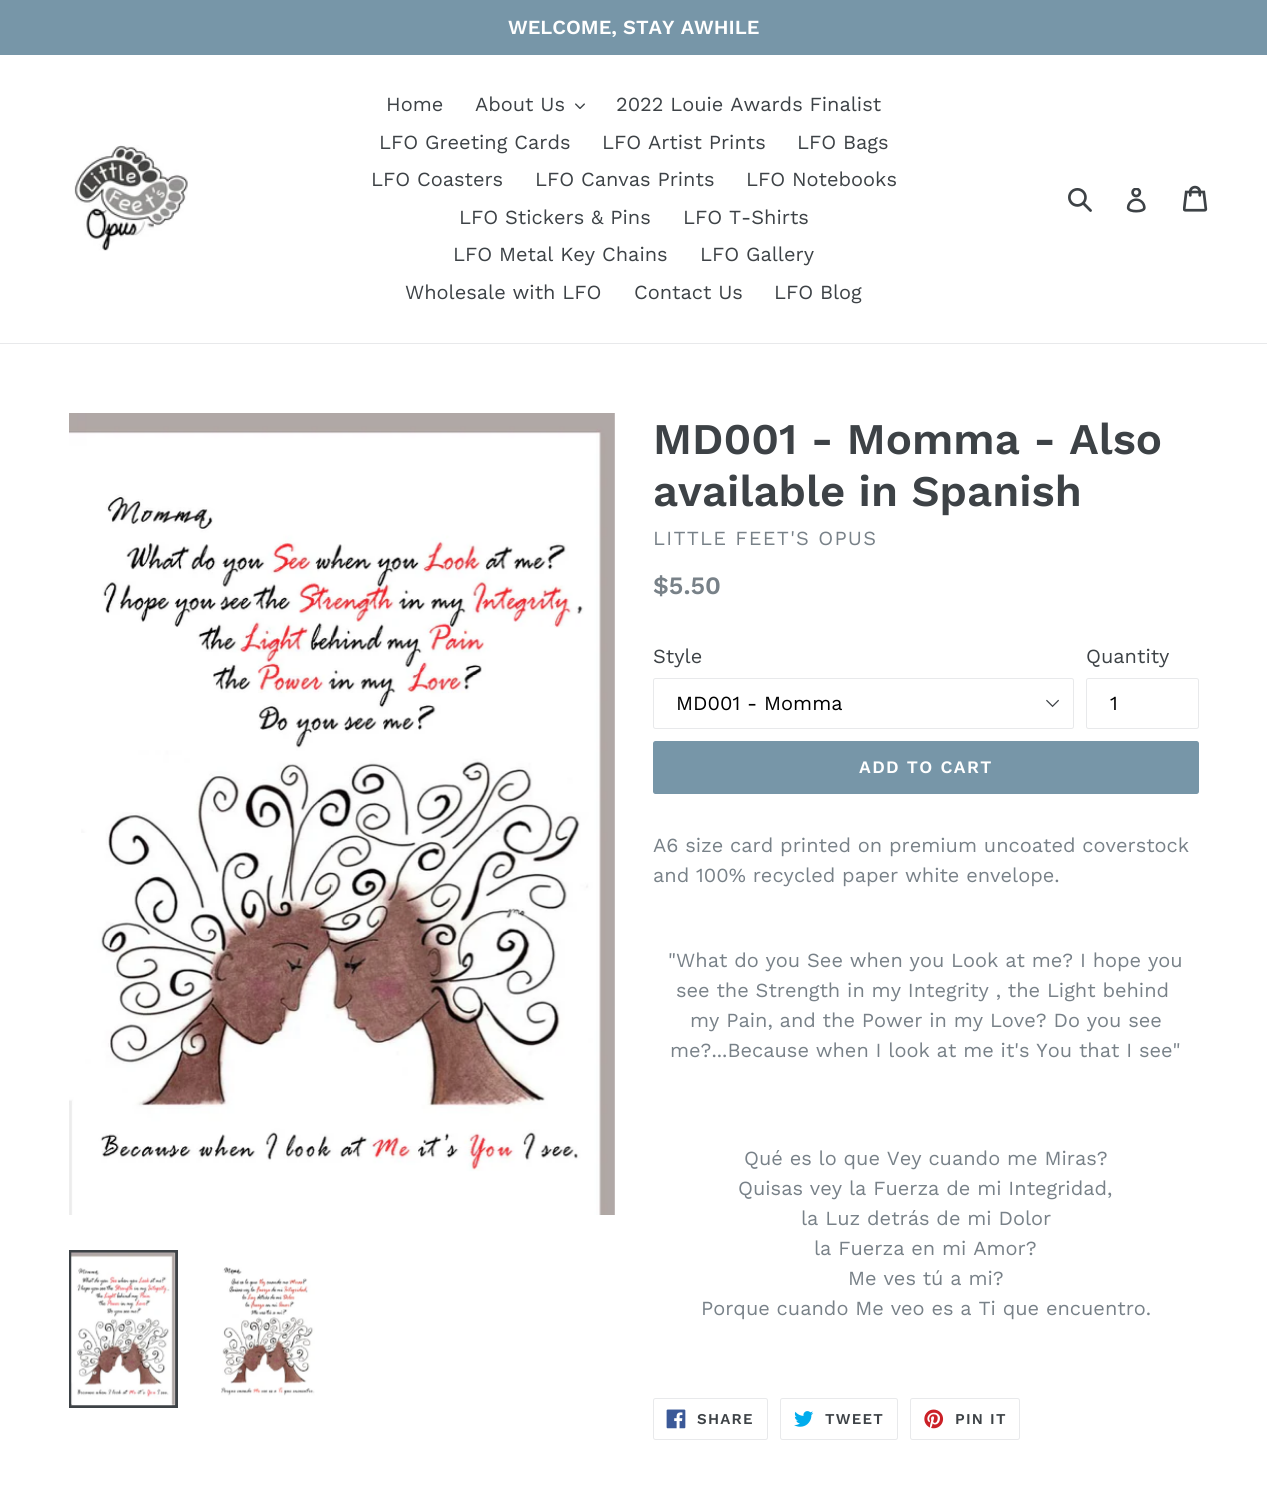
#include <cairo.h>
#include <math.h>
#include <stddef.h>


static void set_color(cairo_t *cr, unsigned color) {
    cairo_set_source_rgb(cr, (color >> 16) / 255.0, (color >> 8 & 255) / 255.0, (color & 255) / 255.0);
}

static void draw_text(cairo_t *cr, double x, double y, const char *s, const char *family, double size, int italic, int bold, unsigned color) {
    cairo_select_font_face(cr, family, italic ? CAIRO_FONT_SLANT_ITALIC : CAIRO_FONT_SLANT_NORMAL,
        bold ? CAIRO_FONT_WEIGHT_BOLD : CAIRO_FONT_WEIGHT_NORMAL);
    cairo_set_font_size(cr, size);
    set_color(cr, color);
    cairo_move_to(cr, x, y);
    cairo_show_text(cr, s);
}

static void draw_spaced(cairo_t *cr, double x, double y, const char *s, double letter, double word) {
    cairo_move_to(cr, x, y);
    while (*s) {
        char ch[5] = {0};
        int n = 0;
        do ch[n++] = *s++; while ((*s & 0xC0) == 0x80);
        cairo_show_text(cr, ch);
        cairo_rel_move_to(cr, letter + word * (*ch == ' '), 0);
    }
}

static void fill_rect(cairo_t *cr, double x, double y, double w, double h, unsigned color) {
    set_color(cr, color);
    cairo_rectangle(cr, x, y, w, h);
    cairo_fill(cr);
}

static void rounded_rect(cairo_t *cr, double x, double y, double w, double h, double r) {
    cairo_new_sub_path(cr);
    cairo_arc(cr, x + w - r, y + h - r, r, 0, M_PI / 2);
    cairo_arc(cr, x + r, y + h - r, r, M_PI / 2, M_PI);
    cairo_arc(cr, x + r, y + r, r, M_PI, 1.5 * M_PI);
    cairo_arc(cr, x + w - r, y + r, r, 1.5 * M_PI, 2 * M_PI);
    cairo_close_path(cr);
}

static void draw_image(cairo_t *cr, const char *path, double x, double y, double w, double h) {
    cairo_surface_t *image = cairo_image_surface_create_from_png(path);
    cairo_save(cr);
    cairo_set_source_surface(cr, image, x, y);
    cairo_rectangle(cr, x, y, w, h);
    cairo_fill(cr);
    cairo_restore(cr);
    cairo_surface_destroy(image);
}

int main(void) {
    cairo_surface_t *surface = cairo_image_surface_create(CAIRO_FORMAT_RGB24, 1267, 1489);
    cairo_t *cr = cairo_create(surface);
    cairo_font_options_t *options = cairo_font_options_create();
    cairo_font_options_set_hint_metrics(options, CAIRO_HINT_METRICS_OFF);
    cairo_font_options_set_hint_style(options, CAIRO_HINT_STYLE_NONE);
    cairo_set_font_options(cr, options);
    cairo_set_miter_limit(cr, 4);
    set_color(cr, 0xFFFFFF);
    cairo_paint(cr);
    fill_rect(cr, 0, 0, 1267, 55, 0x7796A8);
    draw_text(cr, 508, 34, "WELCOME, STAY AWHILE", "Work Sans SemiBold", 20, 0, 0, 0xFFFFFF);
    fill_rect(cr, 0, 343, 1267, 1, 0xE8E9EB);
    draw_image(cr, "assets/img1.png", 74, 145, 114, 106);
    draw_text(cr, 386, 111, "Home", "Work Sans", 20, 0, 0, 0x3D4246);
    draw_text(cr, 475, 111, "About Us", "Work Sans", 20, 0, 0, 0x3D4246);
    draw_image(cr, "assets/img2.png", 575, 103, 10, 6);
    draw_text(cr, 616, 111, "2022 Louie Awards Finalist", "Work Sans", 20, 0, 0, 0x3D4246);
    draw_text(cr, 379, 149, "LFO Greeting Cards", "Work Sans", 20, 0, 0, 0x3D4246);
    draw_text(cr, 602, 149, "LFO Artist Prints", "Work Sans", 20, 0, 0, 0x3D4246);
    draw_text(cr, 797, 149, "LFO Bags", "Work Sans", 20, 0, 0, 0x3D4246);
    draw_text(cr, 371, 186, "LFO Coasters", "Work Sans", 20, 0, 0, 0x3D4246);
    draw_text(cr, 535, 186, "LFO Canvas Prints", "Work Sans", 20, 0, 0, 0x3D4246);
    draw_text(cr, 746, 186, "LFO Notebooks", "Work Sans", 20, 0, 0, 0x3D4246);
    draw_text(cr, 459, 224, "LFO Stickers & Pins", "Work Sans", 20, 0, 0, 0x3D4246);
    draw_text(cr, 683, 224, "LFO T-Shirts", "Work Sans", 20, 0, 0, 0x3D4246);
    draw_text(cr, 453, 261, "LFO Metal Key Chains", "Work Sans", 20, 0, 0, 0x3D4246);
    draw_text(cr, 700, 261, "LFO Gallery", "Work Sans", 20, 0, 0, 0x3D4246);
    draw_text(cr, 405, 299, "Wholesale with LFO", "Work Sans", 20, 0, 0, 0x3D4246);
    draw_text(cr, 634, 299, "Contact Us", "Work Sans", 20, 0, 0, 0x3D4246);
    draw_text(cr, 774, 299, "LFO Blog", "Work Sans", 20, 0, 0, 0x3D4246);
    draw_image(cr, "assets/img3.png", 1068, 188, 24, 24);
    draw_image(cr, "assets/img4.png", 1126, 188, 20, 25);
    draw_image(cr, "assets/img5.png", 1183, 185, 25, 27);
    draw_image(cr, "assets/img6.png", 69, 413, 546, 802);
    cairo_rectangle(cr, 70.5, 1251.5, 106, 155);
    cairo_set_line_width(cr, 3);
    cairo_stroke(cr);
    draw_image(cr, "assets/img7.png", 71, 1252, 105, 154);
    draw_image(cr, "assets/img8.png", 221, 1267, 94, 129);
    draw_text(cr, 653, 454, "MD001 - Momma - Also", "Work Sans SemiBold", 43.75, 0, 0, 0x3D4246);
    draw_text(cr, 653, 506, "available in Spanish", "Work Sans SemiBold", 43.75, 0, 0, 0x3D4246);
    cairo_select_font_face(cr, "Work Sans", CAIRO_FONT_SLANT_NORMAL, CAIRO_FONT_WEIGHT_NORMAL);
    cairo_set_font_size(cr, 20);
    set_color(cr, 0x788188);
    draw_spaced(cr, 653, 545, "LITTLE FEET'S OPUS", 1.25, 0);
    draw_text(cr, 653, 594, "$5.50", "Work Sans SemiBold", 25, 0, 0, 0x788188);
    draw_text(cr, 653, 663, "Style", "Work Sans", 20, 0, 0, 0x3D4246);
    draw_image(cr, "assets/img9.png", 1046, 699, 13, 9);
    rounded_rect(cr, 653.5, 678.5, 420, 50, 2);
    set_color(cr, 0xE8E9EB);
    cairo_set_line_width(cr, 1);
    cairo_stroke(cr);
    draw_text(cr, 676, 710, "MD001 - Momma", "Work Sans", 20, 0, 0, 0x000000);
    draw_text(cr, 1086, 663, "Quantity", "Work Sans", 20, 0, 0, 0x3D4246);
    rounded_rect(cr, 1086.5, 678.5, 112, 50, 2);
    set_color(cr, 0xE8E9EB);
    cairo_stroke(cr);
    draw_text(cr, 1110, 710, "1", "Work Sans", 20, 0, 0, 0x000000);
    set_color(cr, 0x7796A8);
    rounded_rect(cr, 653, 741, 546, 53, 2.5);
    cairo_fill(cr);
    cairo_select_font_face(cr, "Work Sans SemiBold", CAIRO_FONT_SLANT_NORMAL, CAIRO_FONT_WEIGHT_NORMAL);
    cairo_set_font_size(cr, 17.5);
    set_color(cr, 0xFFFFFF);
    draw_spaced(cr, 859, 773, "ADD TO CART", 1.4, 0);
    draw_text(cr, 653, 852, "A6 size card printed on premium uncoated coverstock", "Work Sans", 20, 0, 0, 0x788188);
    draw_text(cr, 653, 882, "and 100% recycled paper white envelope.", "Work Sans", 20, 0, 0, 0x788188);
    draw_text(cr, 668, 967, "\"What do you See when you Look at me? I hope you", "Work Sans", 20, 0, 0, 0x788188);
    draw_text(cr, 676, 997, "see the Strength in my Integrity , the Light behind", "Work Sans", 20, 0, 0, 0x788188);
    draw_text(cr, 690, 1027, "my Pain, and the Power in my Love? Do you see", "Work Sans", 20, 0, 0, 0x788188);
    draw_text(cr, 670, 1057, "me?...Because when I look at me it's You that I see\"", "Work Sans", 20, 0, 0, 0x788188);
    draw_text(cr, 744, 1165, "Qué es lo que Vey cuando me Miras?", "Work Sans", 20, 0, 0, 0x788188);
    draw_text(cr, 738, 1195, "Quisas vey la Fuerza de mi Integridad,", "Work Sans", 20, 0, 0, 0x788188);
    draw_text(cr, 801, 1225, "la Luz detrás de mi Dolor", "Work Sans", 20, 0, 0, 0x788188);
    draw_text(cr, 814, 1255, "la Fuerza en mi Amor?", "Work Sans", 20, 0, 0, 0x788188);
    draw_text(cr, 848, 1285, "Me ves tú a mi?", "Work Sans", 20, 0, 0, 0x788188);
    draw_text(cr, 701, 1315, "Porque cuando Me veo es a Ti que encuentro.", "Work Sans", 20, 0, 0, 0x788188);
    rounded_rect(cr, 653.5, 1398.5, 114, 41, 2);
    set_color(cr, 0xE8E9EB);
    cairo_stroke(cr);
    draw_image(cr, "assets/img10.png", 666, 1409, 20, 20);
    cairo_select_font_face(cr, "Work Sans SemiBold", CAIRO_FONT_SLANT_NORMAL, CAIRO_FONT_WEIGHT_NORMAL);
    cairo_set_font_size(cr, 15);
    set_color(cr, 0x3D4246);
    draw_spaced(cr, 697, 1424, "SHARE", 1.25, 0);
    rounded_rect(cr, 780.5, 1398.5, 117, 41, 2);
    set_color(cr, 0xE8E9EB);
    cairo_stroke(cr);
    draw_image(cr, "assets/img11.png", 794, 1411, 20, 16);
    set_color(cr, 0x3D4246);
    draw_spaced(cr, 825, 1424, "TWEET", 1.25, 0);
    rounded_rect(cr, 910.5, 1398.5, 109, 41, 2);
    set_color(cr, 0xE8E9EB);
    cairo_stroke(cr);
    draw_image(cr, "assets/img12.png", 924, 1409, 20, 20);
    set_color(cr, 0x3D4246);
    draw_spaced(cr, 955, 1424, "PIN IT", 1.25, 0);
    cairo_surface_write_to_png(surface, "output.png");
    cairo_font_options_destroy(options);
    cairo_destroy(cr);
    cairo_surface_destroy(surface);
    return 0;
}
